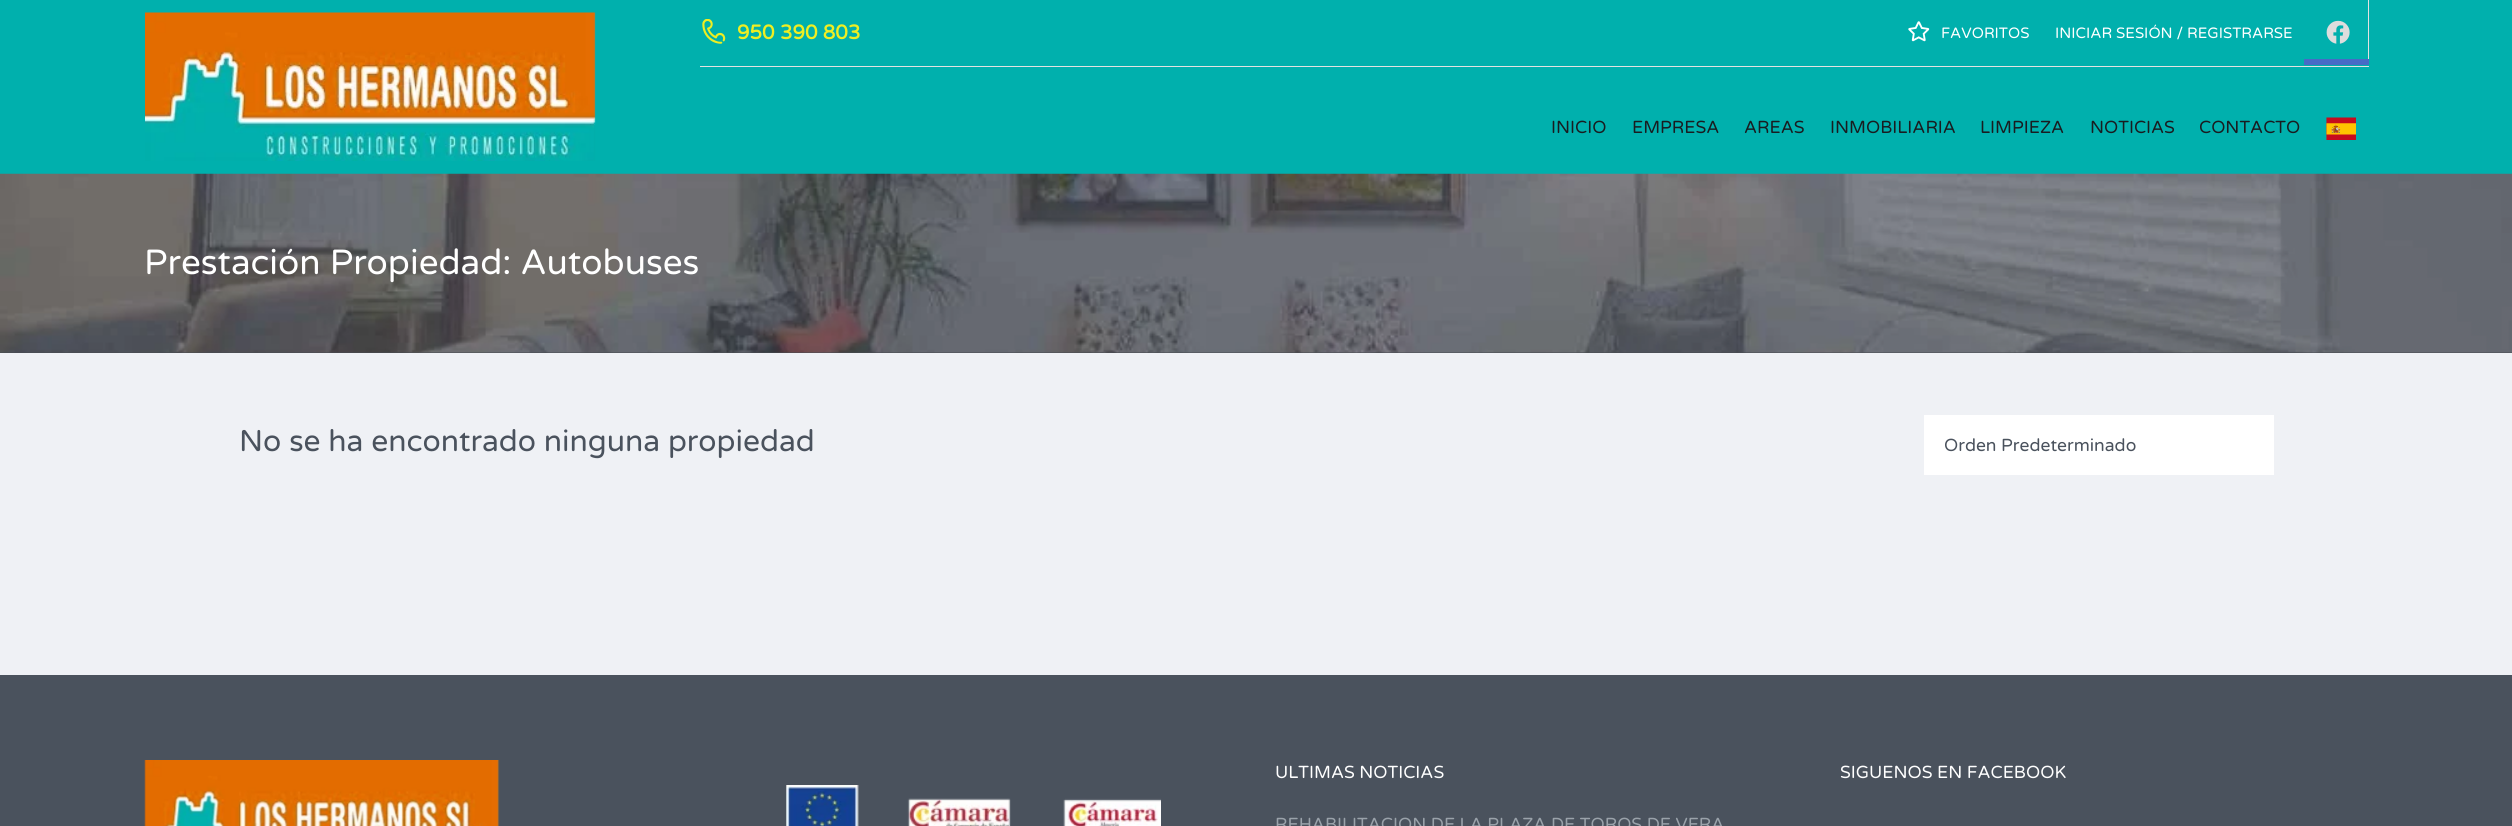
#include <cairo.h>
#include <math.h>
#include <stddef.h>


static void set_color(cairo_t *cr, unsigned color) {
    cairo_set_source_rgb(cr, (color >> 16) / 255.0, (color >> 8 & 255) / 255.0, (color & 255) / 255.0);
}

static void draw_text(cairo_t *cr, double x, double y, const char *s, const char *family, double size, int italic, int bold, unsigned color) {
    cairo_select_font_face(cr, family, italic ? CAIRO_FONT_SLANT_ITALIC : CAIRO_FONT_SLANT_NORMAL,
        bold ? CAIRO_FONT_WEIGHT_BOLD : CAIRO_FONT_WEIGHT_NORMAL);
    cairo_set_font_size(cr, size);
    set_color(cr, color);
    cairo_move_to(cr, x, y);
    cairo_show_text(cr, s);
}

static void fill_rect(cairo_t *cr, double x, double y, double w, double h, unsigned color) {
    set_color(cr, color);
    cairo_rectangle(cr, x, y, w, h);
    cairo_fill(cr);
}

static void draw_image(cairo_t *cr, const char *path, double x, double y, double w, double h) {
    cairo_surface_t *image = cairo_image_surface_create_from_png(path);
    cairo_save(cr);
    cairo_set_source_surface(cr, image, x, y);
    cairo_rectangle(cr, x, y, w, h);
    cairo_fill(cr);
    cairo_restore(cr);
    cairo_surface_destroy(image);
}

int main(void) {
    cairo_surface_t *surface = cairo_image_surface_create(CAIRO_FORMAT_RGB24, 2512, 826);
    cairo_t *cr = cairo_create(surface);
    cairo_font_options_t *options = cairo_font_options_create();
    cairo_font_options_set_hint_metrics(options, CAIRO_HINT_METRICS_OFF);
    cairo_font_options_set_hint_style(options, CAIRO_HINT_STYLE_NONE);
    cairo_set_font_options(cr, options);
    cairo_set_miter_limit(cr, 4);
    set_color(cr, 0xEFF1F5);
    cairo_paint(cr);
    fill_rect(cr, 0, 0, 2512, 174, 0x00B0AD);
    draw_image(cr, "assets/img1.png", 145, 12, 451, 149);
    fill_rect(cr, 700, 66, 1669, 1, 0xE2E2E2);
    draw_image(cr, "assets/img2.png", 702, 19, 24, 25);
    draw_text(cr, 737, 39, "950 390 803", "Varela Round", 20, 0, 1, 0xEEEE22);
    draw_image(cr, "assets/img3.png", 1908, 21, 22, 21);
    draw_text(cr, 1941, 38, "FAVORITOS", "Varela Round", 15, 0, 0, 0xFFFFFF);
    draw_text(cr, 2055, 38, "INICIAR SESIÓN / REGISTRARSE", "Varela Round", 15, 0, 0, 0xFFFFFF);
    fill_rect(cr, 2304, 59, 65, 6, 0x466BC6);
    fill_rect(cr, 2368, 0, 1, 59, 0xE2E2E2);
    draw_image(cr, "assets/img4.png", 2326, 20, 24, 24);
    draw_text(cr, 1551, 133, "INICIO", "Varela Round", 17.5, 0, 0, 0x191C20);
    draw_text(cr, 1632, 133, "EMPRESA", "Varela Round", 17.5, 0, 0, 0x191C20);
    draw_text(cr, 1744, 133, "AREAS", "Varela Round", 17.5, 0, 0, 0x191C20);
    draw_text(cr, 1830, 133, "INMOBILIARIA", "Varela Round", 17.5, 0, 0, 0x191C20);
    draw_text(cr, 1980, 133, "LIMPIEZA", "Varela Round", 17.5, 0, 0, 0x191C20);
    draw_text(cr, 2090, 133, "NOTICIAS", "Varela Round", 17.5, 0, 0, 0x191C20);
    draw_text(cr, 2199, 133, "CONTACTO", "Varela Round", 17.5, 0, 0, 0x191C20);
    draw_image(cr, "assets/img5.png", 2326, 117, 30, 23);
    fill_rect(cr, 0, 352, 2512, 1, 0x494C53);
    draw_image(cr, "assets/img6.png", 0, 173, 2512, 180);
    draw_text(cr, 144, 274, "Prestación Propiedad: Autobuses", "Varela Round", 35, 0, 0, 0xFFFFFF);
    draw_text(cr, 239, 451, "No se ha encontrado ninguna propiedad", "Varela Round", 30, 0, 0, 0x4A525D);
    fill_rect(cr, 1924, 415, 350, 60, 0xFFFFFF);
    draw_text(cr, 1944, 451, "Orden Predeterminado", "Varela Round", 17.5, 0, 0, 0x4A525D);
    fill_rect(cr, 0, 675, 2512, 151, 0x4A525D);
    draw_image(cr, "assets/img7.png", 144, 760, 356, 66);
    draw_text(cr, 1275, 778, "ULTIMAS NOTICIAS", "Varela Round", 17.5, 0, 0, 0xFFFFFF);
    draw_text(cr, 1275, 830, "REHABILITACION DE LA PLAZA DE TOROS DE VERA", "Varela Round", 17.5, 0, 0, 0x9AA2AA);
    draw_text(cr, 1840, 778, "SIGUENOS EN FACEBOOK", "Varela Round", 17.5, 0, 0, 0xFFFFFF);
    draw_image(cr, "assets/img8.png", 786, 785, 375, 41);
    cairo_surface_write_to_png(surface, "output.png");
    cairo_font_options_destroy(options);
    cairo_destroy(cr);
    cairo_surface_destroy(surface);
    return 0;
}
